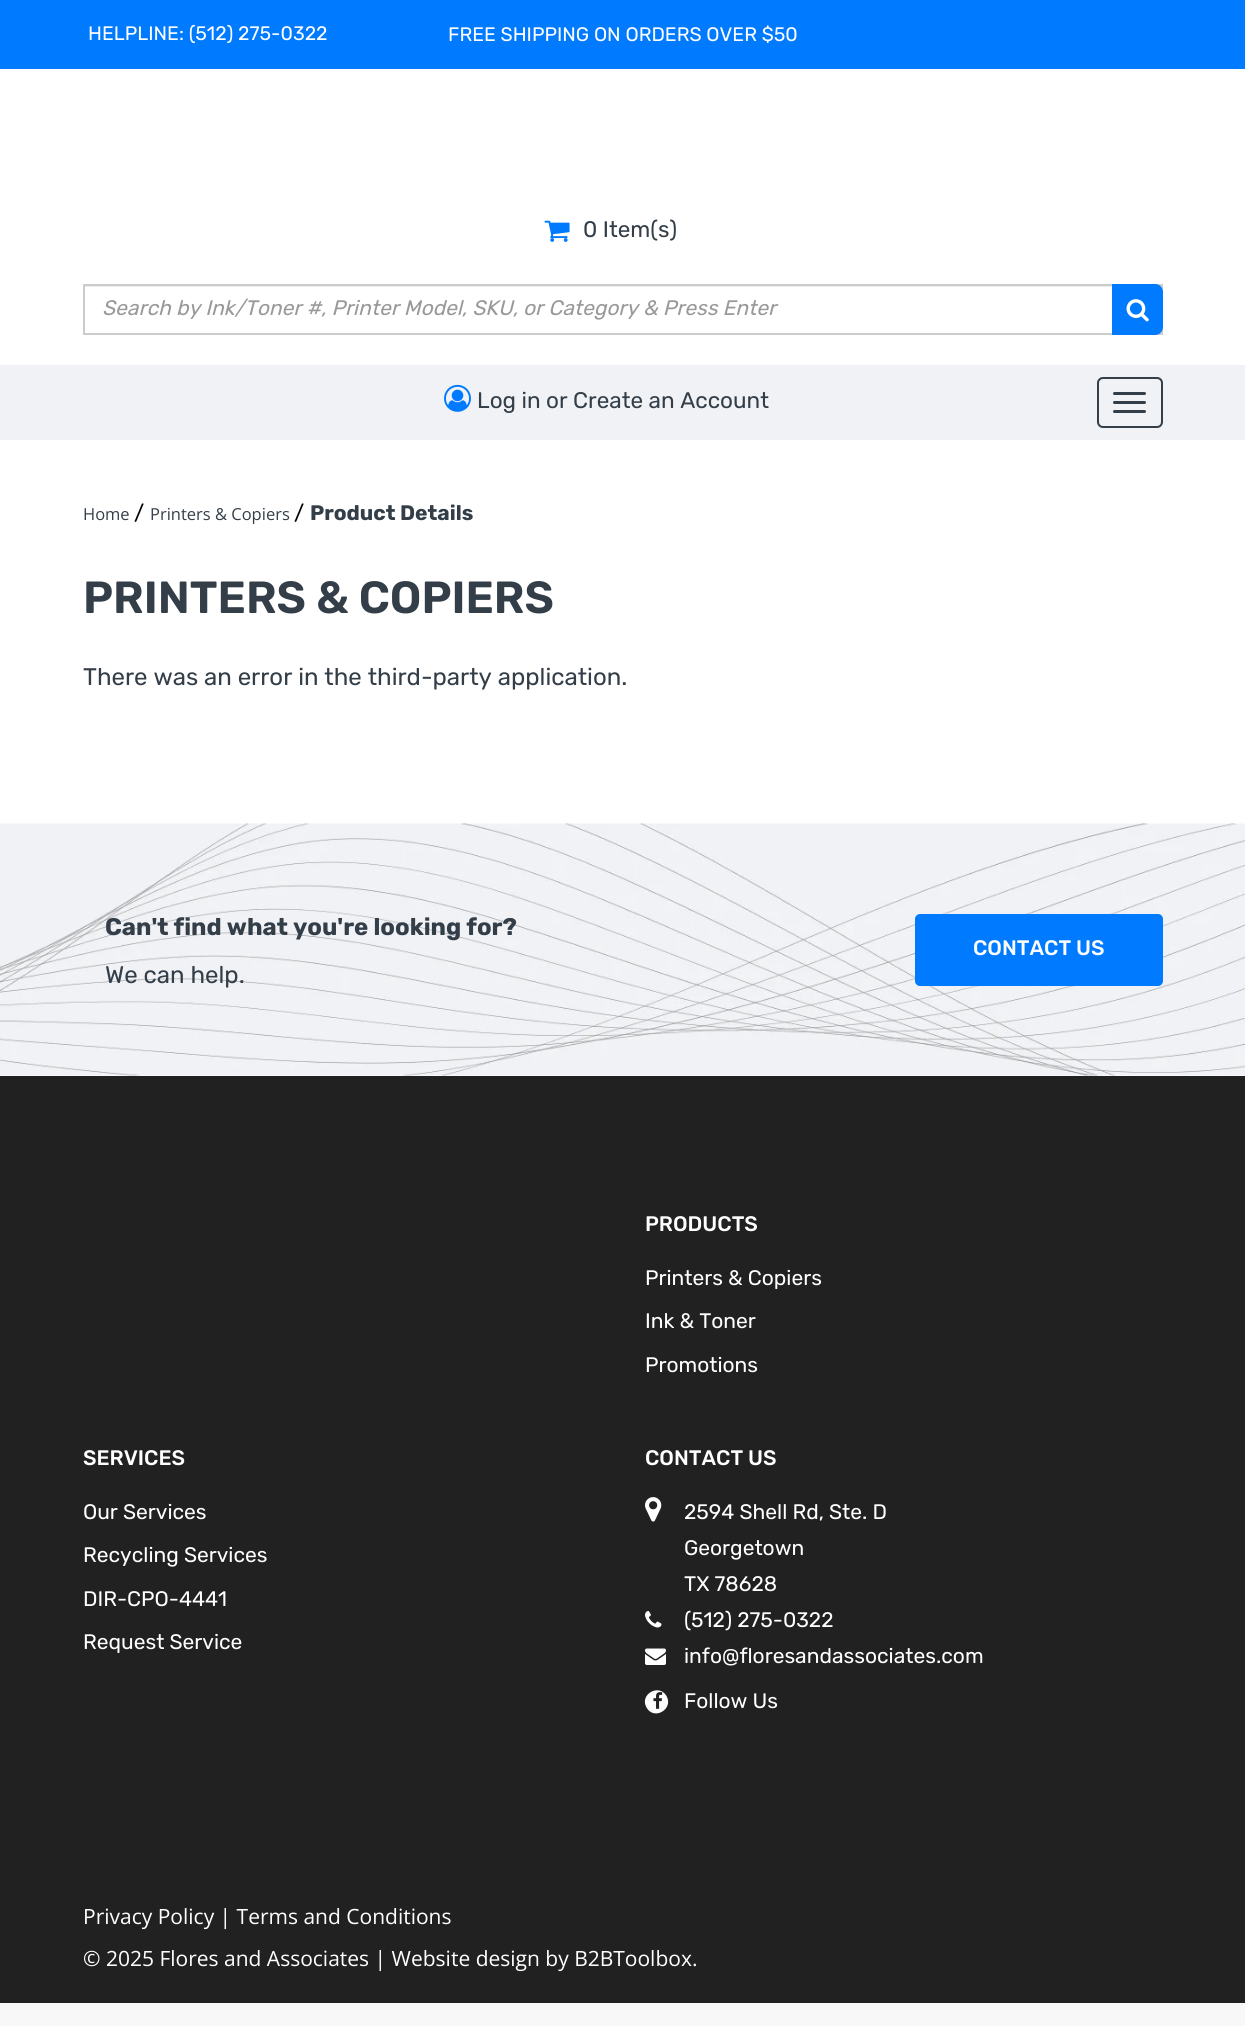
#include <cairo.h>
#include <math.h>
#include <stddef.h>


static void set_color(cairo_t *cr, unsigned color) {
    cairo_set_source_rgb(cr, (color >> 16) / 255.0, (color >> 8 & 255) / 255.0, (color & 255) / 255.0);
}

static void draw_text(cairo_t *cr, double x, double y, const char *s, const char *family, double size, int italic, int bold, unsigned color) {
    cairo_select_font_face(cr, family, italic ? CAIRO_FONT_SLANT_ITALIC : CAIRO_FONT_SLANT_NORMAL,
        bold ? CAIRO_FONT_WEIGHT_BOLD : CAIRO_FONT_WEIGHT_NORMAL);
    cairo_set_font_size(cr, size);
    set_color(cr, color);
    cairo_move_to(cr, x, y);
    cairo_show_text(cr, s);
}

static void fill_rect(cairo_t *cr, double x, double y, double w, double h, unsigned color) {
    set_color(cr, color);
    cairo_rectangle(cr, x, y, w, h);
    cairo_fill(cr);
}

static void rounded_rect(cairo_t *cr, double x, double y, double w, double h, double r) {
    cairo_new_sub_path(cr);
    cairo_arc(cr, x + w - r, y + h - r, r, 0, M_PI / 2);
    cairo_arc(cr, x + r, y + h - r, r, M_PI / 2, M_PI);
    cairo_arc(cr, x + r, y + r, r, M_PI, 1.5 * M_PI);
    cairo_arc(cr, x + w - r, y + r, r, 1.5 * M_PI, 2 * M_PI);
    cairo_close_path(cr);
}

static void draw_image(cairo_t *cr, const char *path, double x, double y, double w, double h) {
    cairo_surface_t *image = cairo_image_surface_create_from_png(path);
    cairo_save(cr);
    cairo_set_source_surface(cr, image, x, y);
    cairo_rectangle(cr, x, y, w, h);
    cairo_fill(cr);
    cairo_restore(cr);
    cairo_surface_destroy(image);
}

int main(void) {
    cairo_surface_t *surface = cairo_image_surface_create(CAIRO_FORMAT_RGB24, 1245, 2026);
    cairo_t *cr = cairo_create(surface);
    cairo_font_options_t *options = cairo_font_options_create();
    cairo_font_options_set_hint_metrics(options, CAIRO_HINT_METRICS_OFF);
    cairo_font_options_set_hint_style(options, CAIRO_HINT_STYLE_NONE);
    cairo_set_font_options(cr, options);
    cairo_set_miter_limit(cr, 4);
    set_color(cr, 0xF8F8F8);
    cairo_paint(cr);
    fill_rect(cr, 0, 69, 1245, 1007, 0xFFFFFF);
    fill_rect(cr, 0, 0, 1245, 69, 0x007AFF);
    draw_text(cr, 88, 40, "HELPLINE: (512) 275-0322", "Rubik", 19.5, 0, 0, 0xFFFFFF);
    draw_text(cr, 448, 41, "FREE SHIPPING ON ORDERS OVER $50", "Rubik", 19.5, 0, 0, 0xFFFFFF);
    draw_image(cr, "assets/img1.png", 544, 220, 26, 22);
    draw_text(cr, 583, 237, "0 Item(s)", "Rubik", 22.5, 0, 0, 0x333E48);
    fill_rect(cr, 84, 286, 1077, 1, 0xECECEC);
    cairo_rectangle(cr, 84, 285, 1078, 49);
    set_color(cr, 0xCCCCCC);
    cairo_stroke(cr);
    draw_text(cr, 102, 315, "Search by Ink/Toner #, Printer Model, SKU, or Category & Press Enter", "Rubik", 21, 1, 0, 0x999999);
    set_color(cr, 0x007AFF);
    cairo_new_path(cr);
    cairo_move_to(cr, 1112, 284);
    cairo_line_to(cr, 1155, 284);
    cairo_curve_to(cr, 1159.5, 284, 1163, 287.5, 1163, 292);
    cairo_line_to(cr, 1163, 327);
    cairo_curve_to(cr, 1163, 331.5, 1159.5, 335, 1155, 335);
    cairo_line_to(cr, 1112, 335);
    cairo_close_path(cr);
    cairo_fill(cr);
    draw_image(cr, "assets/img2.png", 1126, 299, 23, 23);
    fill_rect(cr, 0, 365, 1245, 75, 0xF0F2F5);
    draw_image(cr, "assets/img3.png", 444, 384, 27, 28);
    draw_text(cr, 477, 408, "Log in or Create an Account", "Rubik", 22.5, 0, 0, 0x333E48);
    rounded_rect(cr, 1098, 378, 64, 49, 5);
    cairo_stroke(cr);
    rounded_rect(cr, 1113, 392, 33, 3, 1.5);
    cairo_fill(cr);
    rounded_rect(cr, 1113, 401, 33, 3, 1.5);
    cairo_fill(cr);
    rounded_rect(cr, 1113, 410, 33, 3, 1.5);
    cairo_fill(cr);
    draw_text(cr, 83, 520, "Home", "Open Sans", 16.5, 0, 0, 0x333E48);
    draw_text(cr, 134, 520, "/", "Rubik", 21, 0, 0, 0x000000);
    draw_text(cr, 150, 520, "Printers & Copiers", "Open Sans", 16.5, 0, 0, 0x333E48);
    draw_text(cr, 294, 520, "/", "Rubik", 21, 0, 0, 0x000000);
    draw_text(cr, 310, 520, "Product Details", "Rubik", 21, 0, 1, 0x333E48);
    draw_text(cr, 83, 613, "PRINTERS & COPIERS", "Rubik SemiBold", 45, 0, 0, 0x333E48);
    draw_text(cr, 83, 685, "There was an error in the third-party application.", "Rubik", 24, 0, 0, 0x333E48);
    draw_image(cr, "assets/img4.png", 0, 823, 1245, 253);
    draw_text(cr, 105, 935, "Can't find what you're looking for?", "Rubik", 24, 0, 1, 0x333E48);
    draw_text(cr, 105, 983, "We can help.", "Rubik", 24, 0, 0, 0x333E48);
    set_color(cr, 0x007AFF);
    rounded_rect(cr, 916, 915, 246, 70, 4);
    cairo_fill_preserve(cr);
    cairo_stroke(cr);
    draw_text(cr, 973, 955, "CONTACT US", "Rubik Medium", 21, 0, 0, 0xFFFFFF);
    fill_rect(cr, 0, 1076, 1245, 927, 0x212121);
    draw_text(cr, 645, 1231, "PRODUCTS", "Rubik Medium", 21, 0, 0, 0xFFFFFF);
    draw_text(cr, 645, 1285, "Printers & Copiers", "Rubik", 21, 0, 0, 0xFFFFFF);
    draw_text(cr, 645, 1328, "Ink & Toner", "Rubik", 21, 0, 0, 0xFFFFFF);
    draw_text(cr, 645, 1372, "Promotions", "Rubik", 21, 0, 0, 0xFFFFFF);
    draw_text(cr, 83, 1465, "SERVICES", "Rubik Medium", 21, 0, 0, 0xFFFFFF);
    draw_text(cr, 83, 1519, "Our Services", "Rubik", 21, 0, 0, 0xFFFFFF);
    draw_text(cr, 83, 1562, "Recycling Services", "Rubik", 21, 0, 0, 0xFFFFFF);
    draw_text(cr, 83, 1606, "DIR-CPO-4441", "Rubik", 21, 0, 0, 0xFFFFFF);
    draw_text(cr, 83, 1649, "Request Service", "Rubik", 21, 0, 0, 0xFFFFFF);
    draw_text(cr, 645, 1465, "CONTACT US", "Rubik Medium", 21, 0, 0, 0xFFFFFF);
    draw_image(cr, "assets/img5.png", 645, 1497, 17, 25);
    draw_text(cr, 684, 1519, "2594 Shell Rd, Ste. D", "Rubik", 21, 0, 0, 0xFFFFFF);
    draw_text(cr, 684, 1555, "Georgetown", "Rubik", 21, 0, 0, 0xFFFFFF);
    draw_text(cr, 684, 1591, "TX 78628", "Rubik", 21, 0, 0, 0xFFFFFF);
    draw_image(cr, "assets/img6.png", 645, 1611, 17, 17);
    draw_text(cr, 684, 1627, "(512) 275-0322", "Rubik", 21, 0, 0, 0xFFFFFF);
    draw_image(cr, "assets/img7.png", 645, 1648, 21, 17);
    draw_text(cr, 684, 1663, "info@floresandassociates.com", "Rubik", 21, 0, 0, 0xFFFFFF);
    cairo_new_path(cr);
    cairo_move_to(cr, 666.5, 1696);
    cairo_curve_to(cr, 674, 1709, 654, 1721, 646.5, 1707.5);
    cairo_curve_to(cr, 639, 1694.5, 659, 1683, 666.5, 1696);
    cairo_close_path(cr);
    cairo_fill(cr);
    draw_image(cr, "assets/img8.png", 653, 1692, 10, 17);
    draw_text(cr, 684, 1708, "Follow Us", "Rubik", 21, 0, 0, 0xFFFFFF);
    draw_text(cr, 83, 1924, "Privacy Policy | Terms and Conditions", "Open Sans", 21, 0, 0, 0xFFFFFF);
    draw_text(cr, 83, 1966, "© 2025 Flores and Associates | Website design by B2BToolbox.", "Open Sans", 21, 0, 0, 0xFFFFFF);
    cairo_surface_write_to_png(surface, "output.png");
    cairo_font_options_destroy(options);
    cairo_destroy(cr);
    cairo_surface_destroy(surface);
    return 0;
}
